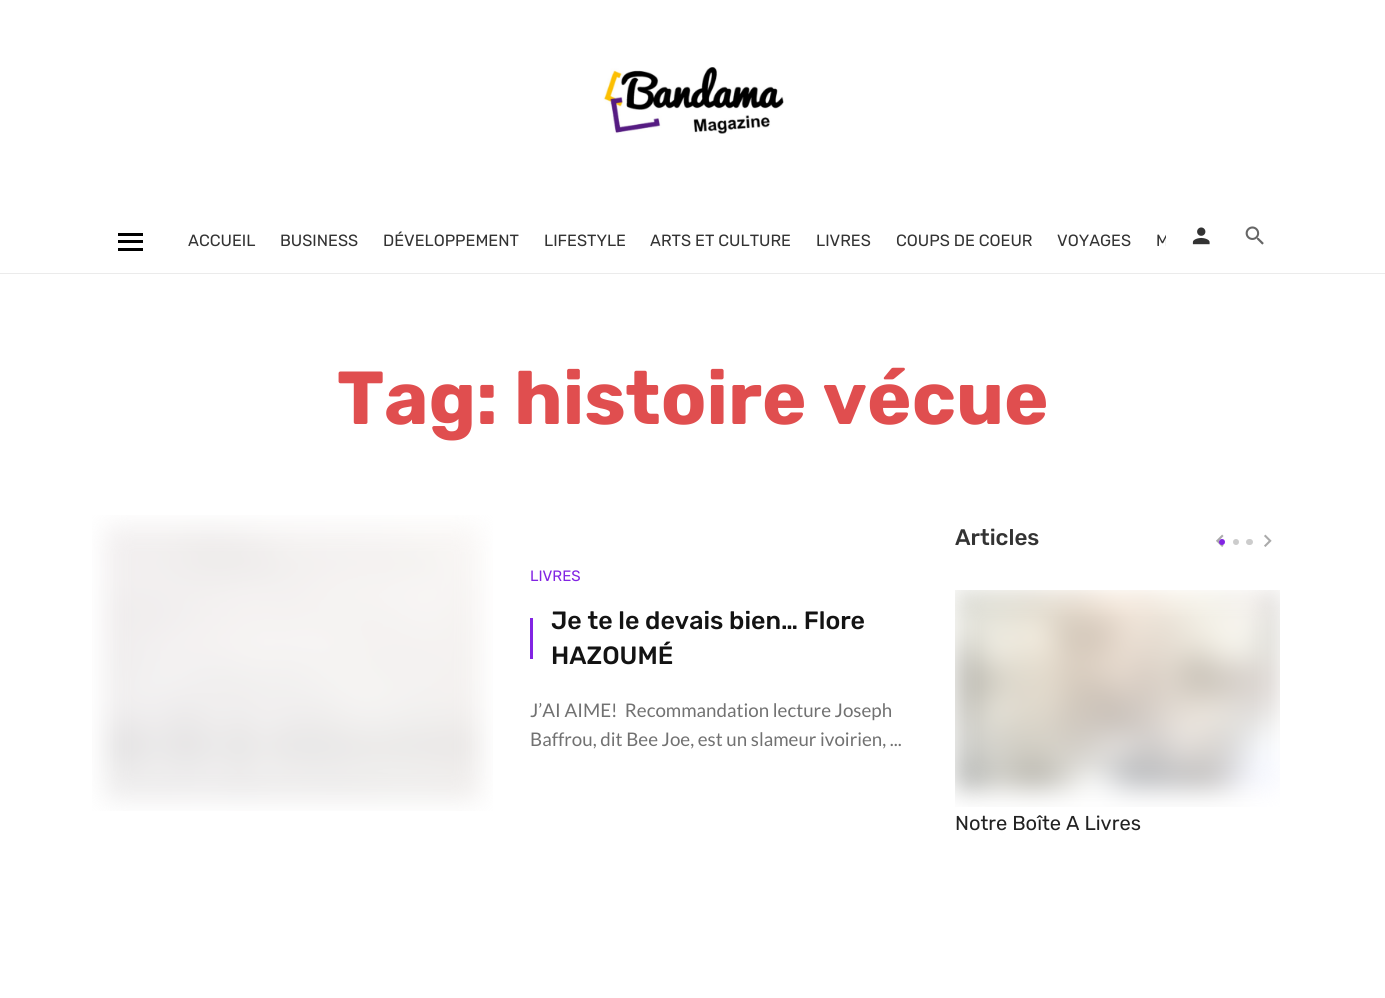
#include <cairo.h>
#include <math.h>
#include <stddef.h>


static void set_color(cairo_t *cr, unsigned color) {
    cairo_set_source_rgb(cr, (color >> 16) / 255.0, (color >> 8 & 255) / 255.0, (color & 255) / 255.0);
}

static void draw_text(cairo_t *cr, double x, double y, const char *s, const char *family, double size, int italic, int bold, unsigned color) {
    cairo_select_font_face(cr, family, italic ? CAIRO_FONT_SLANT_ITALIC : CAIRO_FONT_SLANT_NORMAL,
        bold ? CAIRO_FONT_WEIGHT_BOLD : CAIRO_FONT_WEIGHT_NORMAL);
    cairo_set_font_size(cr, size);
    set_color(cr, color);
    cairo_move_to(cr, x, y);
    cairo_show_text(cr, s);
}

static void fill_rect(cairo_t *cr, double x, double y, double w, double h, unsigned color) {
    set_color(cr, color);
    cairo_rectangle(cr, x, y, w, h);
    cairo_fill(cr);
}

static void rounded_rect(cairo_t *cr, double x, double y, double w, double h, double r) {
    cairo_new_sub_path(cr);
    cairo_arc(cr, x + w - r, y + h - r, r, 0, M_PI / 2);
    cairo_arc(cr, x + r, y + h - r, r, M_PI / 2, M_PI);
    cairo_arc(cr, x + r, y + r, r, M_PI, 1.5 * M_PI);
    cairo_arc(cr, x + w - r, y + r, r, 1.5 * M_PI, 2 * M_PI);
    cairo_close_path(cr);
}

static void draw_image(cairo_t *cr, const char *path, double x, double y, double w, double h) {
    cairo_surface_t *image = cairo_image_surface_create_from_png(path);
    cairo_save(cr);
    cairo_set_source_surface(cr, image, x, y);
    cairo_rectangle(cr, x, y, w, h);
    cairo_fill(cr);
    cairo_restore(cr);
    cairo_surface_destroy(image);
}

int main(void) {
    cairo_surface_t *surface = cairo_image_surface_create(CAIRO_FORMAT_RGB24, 1385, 998);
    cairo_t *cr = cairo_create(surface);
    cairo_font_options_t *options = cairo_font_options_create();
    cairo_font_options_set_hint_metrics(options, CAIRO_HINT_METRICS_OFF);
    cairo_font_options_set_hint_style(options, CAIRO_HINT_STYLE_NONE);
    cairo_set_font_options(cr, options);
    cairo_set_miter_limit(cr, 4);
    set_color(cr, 0xFFFFFF);
    cairo_paint(cr);
    fill_rect(cr, 0, 273, 1385, 1, 0xEBEBEB);
    draw_image(cr, "assets/img1.png", 603, 67, 181, 67);
    fill_rect(cr, 118, 240, 25, 3, 0x000000);
    fill_rect(cr, 118, 233, 25, 3, 0x000000);
    fill_rect(cr, 118, 248, 25, 3, 0x000000);
    draw_text(cr, 188, 246, "ACCUEIL", "Rubik", 16.25, 0, 0, 0x333333);
    draw_text(cr, 280, 246, "BUSINESS", "Rubik", 16.25, 0, 0, 0x333333);
    draw_text(cr, 383, 246, "DÉVELOPPEMENT", "Rubik", 16.25, 0, 0, 0x333333);
    draw_text(cr, 544, 246, "LIFESTYLE", "Rubik", 16.25, 0, 0, 0x333333);
    draw_text(cr, 650, 246, "ARTS ET CULTURE", "Rubik", 16.25, 0, 0, 0x333333);
    draw_text(cr, 816, 246, "LIVRES", "Rubik", 16.25, 0, 0, 0x333333);
    draw_text(cr, 896, 246, "COUPS DE COEUR", "Rubik", 16.25, 0, 0, 0x333333);
    draw_text(cr, 1057, 246, "VOYAGES", "Rubik", 16.25, 0, 0, 0x333333);
    cairo_save(cr);
    cairo_rectangle(cr, 165, 204, 1001, 75);
    cairo_clip(cr);
    draw_text(cr, 1156, 246, "M", "Rubik", 16.25, 0, 0, 0x333333);
    cairo_restore(cr);
    draw_image(cr, "assets/img2.png", 1192, 227, 18, 18);
    draw_image(cr, "assets/img3.png", 1245, 226, 19, 19);
    draw_text(cr, 337, 424, "Tag: histoire vécue", "Rubik", 75, 0, 1, 0xE04E4F);
    draw_image(cr, "assets/img4.png", 92, 515, 401, 296);
    draw_text(cr, 530, 581, "LIVRES", "Rubik", 15, 0, 0, 0x8224E3);
    fill_rect(cr, 530, 618, 3, 41, 0x8224E3);
    draw_text(cr, 551, 629, "Je te le devais bien… Flore", "Rubik Medium", 25, 0, 0, 0x131313);
    draw_text(cr, 551, 664, "HAZOUMÉ", "Rubik Medium", 25, 0, 0, 0x131313);
    draw_text(cr, 530, 717, "J’AI AIME!  Recommandation lecture Joseph", "Lato", 18.75, 0, 0, 0x717171);
    draw_text(cr, 530, 746, "Baffrou, dit Bee Joe, est un slameur ivoirien, ...", "Lato", 18.75, 0, 0, 0x717171);
    draw_text(cr, 955, 545, "Articles", "Rubik Medium", 22.5, 0, 0, 0x333333);
    draw_image(cr, "assets/img5.png", 1216, 534, 8, 13);
    draw_image(cr, "assets/img6.png", 1264, 534, 8, 13);
    set_color(cr, 0x8224E3);
    cairo_arc(cr, 1222, 542, 3, 0, 2 * M_PI);
    cairo_fill(cr);
    set_color(cr, 0xCCCCCC);
    cairo_arc(cr, 1236, 542, 3, 0, 2 * M_PI);
    cairo_fill(cr);
    rounded_rect(cr, 1246, 539, 7, 6, 3);
    cairo_fill(cr);
    draw_image(cr, "assets/img7.png", 955, 590, 325, 217);
    draw_text(cr, 955, 830, "Notre Boîte A Livres", "Rubik", 20.1, 0, 0, 0x222222);
    cairo_surface_write_to_png(surface, "output.png");
    cairo_font_options_destroy(options);
    cairo_destroy(cr);
    cairo_surface_destroy(surface);
    return 0;
}
